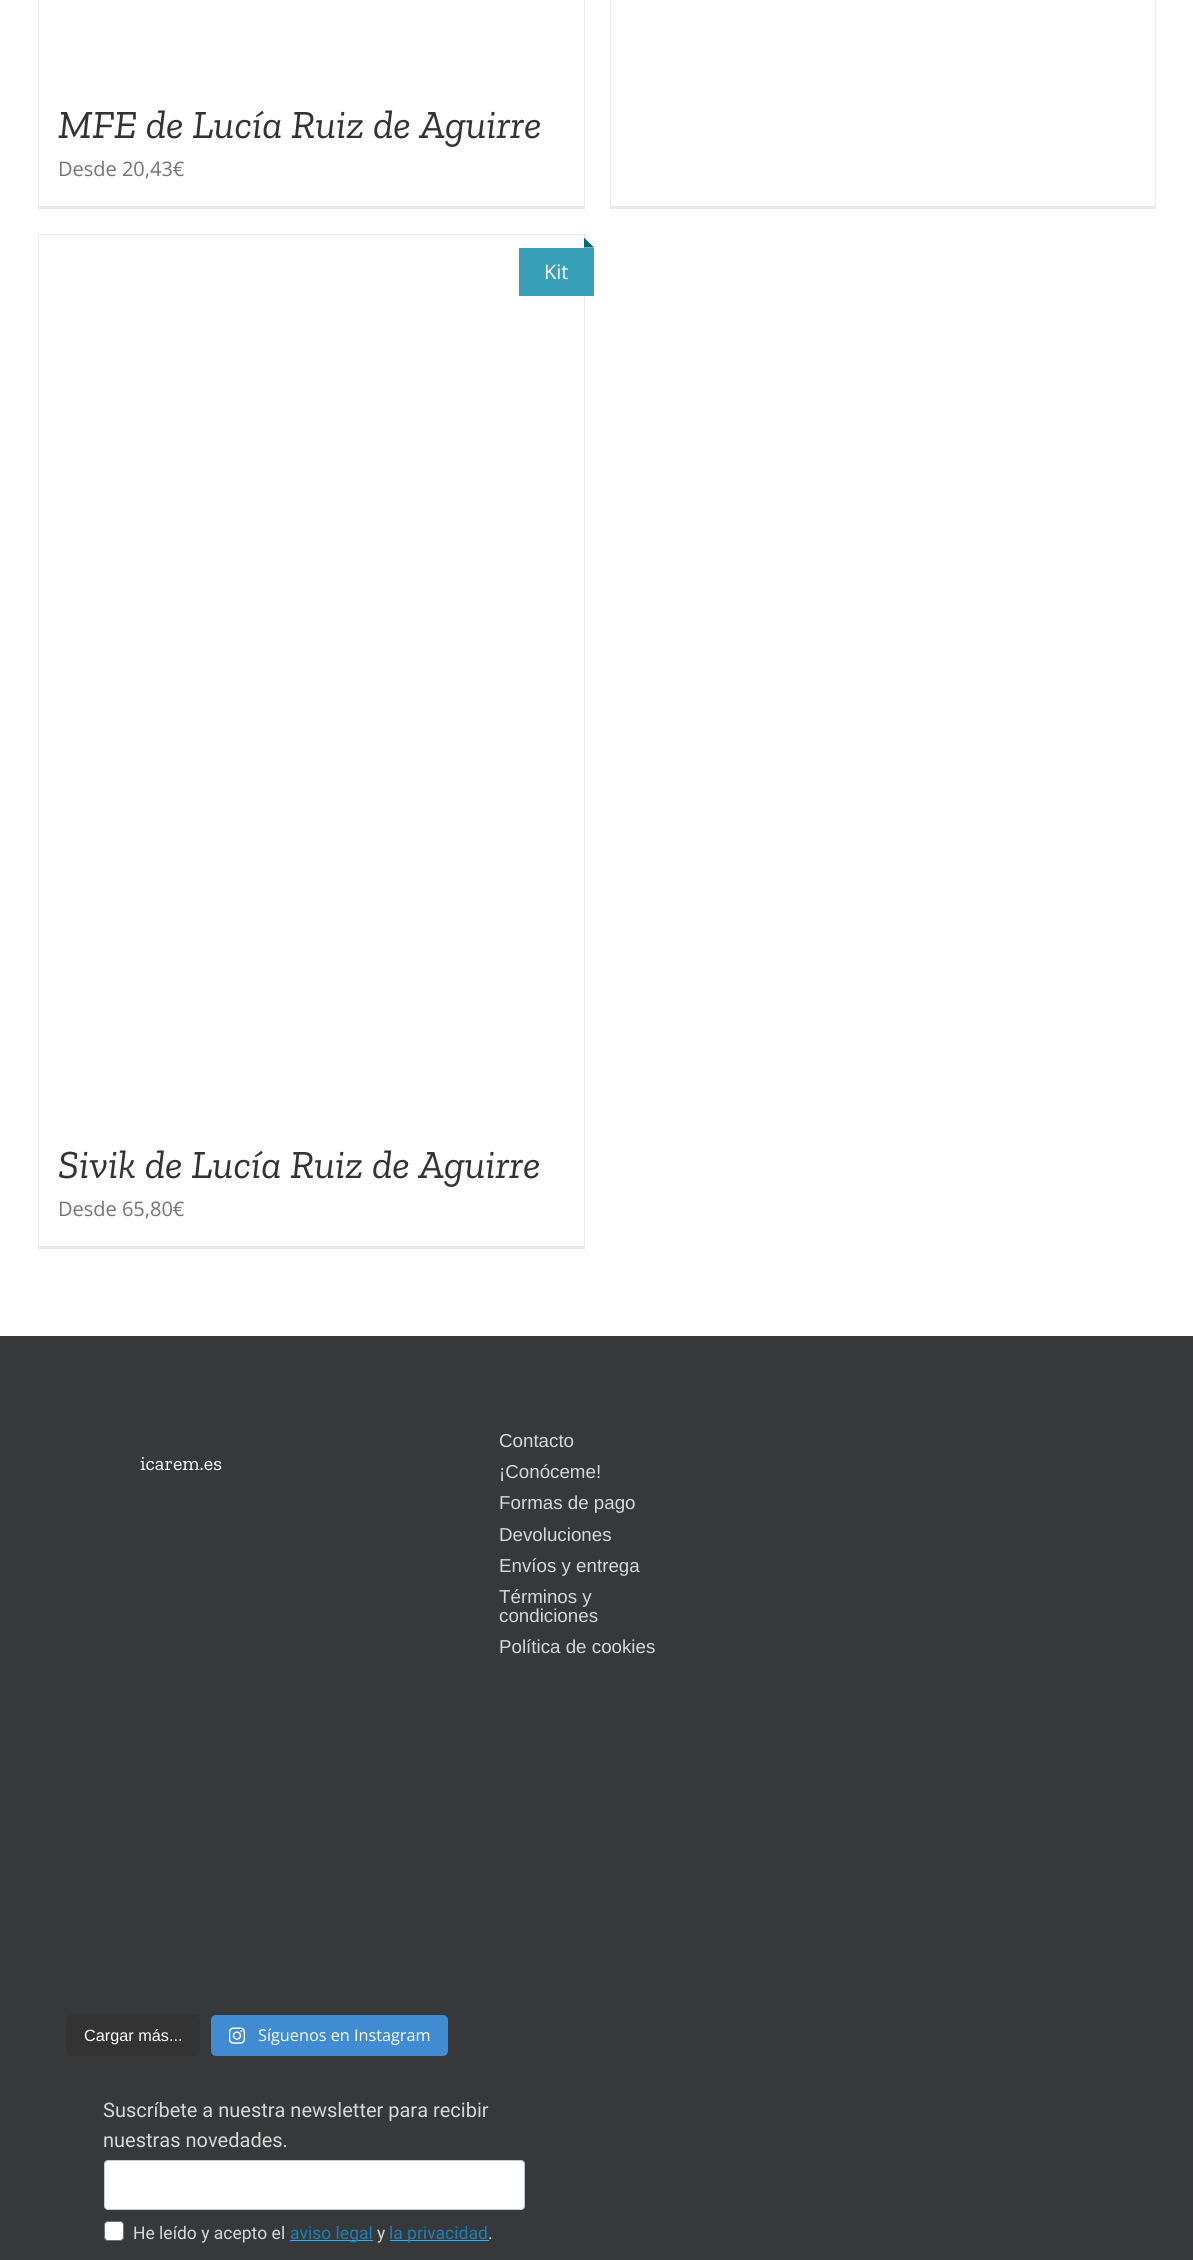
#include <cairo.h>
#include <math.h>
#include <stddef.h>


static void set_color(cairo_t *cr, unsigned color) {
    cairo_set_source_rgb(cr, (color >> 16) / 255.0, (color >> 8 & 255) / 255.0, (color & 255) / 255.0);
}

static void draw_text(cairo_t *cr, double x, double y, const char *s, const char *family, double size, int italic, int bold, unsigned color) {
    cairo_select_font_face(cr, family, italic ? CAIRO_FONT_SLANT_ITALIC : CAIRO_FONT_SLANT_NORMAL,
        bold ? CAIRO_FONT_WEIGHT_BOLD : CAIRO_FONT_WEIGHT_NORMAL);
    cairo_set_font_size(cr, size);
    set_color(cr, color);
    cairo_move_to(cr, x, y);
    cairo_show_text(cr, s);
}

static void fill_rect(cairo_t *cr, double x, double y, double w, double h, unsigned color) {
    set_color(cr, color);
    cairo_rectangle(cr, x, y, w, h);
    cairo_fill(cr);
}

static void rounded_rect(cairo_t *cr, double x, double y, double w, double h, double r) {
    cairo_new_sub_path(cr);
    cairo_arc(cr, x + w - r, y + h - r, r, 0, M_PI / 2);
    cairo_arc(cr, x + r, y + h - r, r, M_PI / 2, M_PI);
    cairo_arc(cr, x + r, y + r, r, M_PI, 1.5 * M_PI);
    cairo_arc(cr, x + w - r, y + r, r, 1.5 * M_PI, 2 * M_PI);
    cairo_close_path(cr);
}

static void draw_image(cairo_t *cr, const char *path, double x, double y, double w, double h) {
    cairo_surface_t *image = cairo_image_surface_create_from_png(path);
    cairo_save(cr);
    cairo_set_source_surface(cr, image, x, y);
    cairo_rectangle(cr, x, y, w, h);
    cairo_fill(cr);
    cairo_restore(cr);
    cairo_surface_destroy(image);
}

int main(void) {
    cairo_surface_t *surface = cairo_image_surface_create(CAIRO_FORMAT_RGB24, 1193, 2260);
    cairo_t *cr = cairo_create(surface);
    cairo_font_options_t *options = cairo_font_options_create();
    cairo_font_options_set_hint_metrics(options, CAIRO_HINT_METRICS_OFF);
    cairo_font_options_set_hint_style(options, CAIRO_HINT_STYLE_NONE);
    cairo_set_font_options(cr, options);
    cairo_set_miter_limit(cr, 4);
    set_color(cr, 0xFFFFFF);
    cairo_paint(cr);
    fill_rect(cr, 584, 0, 1, 209, 0xEBEAEA);
    fill_rect(cr, 38, 206, 547, 3, 0xEBEAEA);
    fill_rect(cr, 38, 0, 1, 209, 0xEBEAEA);
    draw_text(cr, 58, 138, "MFE de Lucía Ruiz de Aguirre", "Zilla Slab", 40, 1, 0, 0x333333);
    draw_text(cr, 58, 176, "Desde 20,43€", "Open Sans", 20, 0, 0, 0x747474);
    fill_rect(cr, 1155, 0, 1, 209, 0xEBEAEA);
    fill_rect(cr, 610, 206, 546, 3, 0xEBEAEA);
    fill_rect(cr, 610, 0, 1, 209, 0xEBEAEA);
    fill_rect(cr, 38, 234, 547, 1, 0xEBEAEA);
    fill_rect(cr, 584, 234, 1, 1015, 0xEBEAEA);
    fill_rect(cr, 38, 1246, 547, 3, 0xEBEAEA);
    fill_rect(cr, 38, 234, 1, 1015, 0xEBEAEA);
    fill_rect(cr, 519, 248, 75, 48, 0x39A0BA);
    set_color(cr, 0x0A6379);
    cairo_new_path(cr);
    cairo_move_to(cr, 594, 247.5);
    cairo_line_to(cr, 584, 247.5);
    cairo_line_to(cr, 584, 237.5);
    cairo_close_path(cr);
    cairo_fill(cr);
    draw_text(cr, 544, 279, "Kit", "Open Sans", 20, 0, 0, 0xFFFFFF);
    draw_text(cr, 58, 1178, "Sivik de Lucía Ruiz de Aguirre", "Zilla Slab", 40, 1, 0, 0x333333);
    draw_text(cr, 58, 1216, "Desde 65,80€", "Open Sans", 20, 0, 0, 0x747474);
    fill_rect(cr, 0, 1336, 1193, 924, 0x363839);
    draw_text(cr, 140, 1470, "icarem.es", "Zilla Slab", 20, 0, 0, 0xFFFFFF);
    set_color(cr, 0x333333);
    rounded_rect(cr, 66, 2015, 134, 41, 5);
    cairo_fill(cr);
    draw_text(cr, 84, 2041, "Cargar más...", "Liberation Sans", 16.25, 0, 0, 0xFFFFFF);
    set_color(cr, 0x408BD1);
    rounded_rect(cr, 211, 2015, 237, 41, 5);
    cairo_fill(cr);
    draw_image(cr, "assets/img1.png", 229, 2027, 16, 17);
    draw_text(cr, 258, 2041, "Síguenos en Instagram", "Open Sans", 16.25, 0, 0, 0xFFFFFF);
    draw_text(cr, 499, 1447, "Contacto", "Liberation Sans", 18.75, 0, 0, 0xD7D7D7);
    draw_text(cr, 499, 1478, "¡Conóceme!", "Liberation Sans", 18.75, 0, 0, 0xD7D7D7);
    draw_text(cr, 499, 1509, "Formas de pago", "Liberation Sans", 18.75, 0, 0, 0xD7D7D7);
    draw_text(cr, 499, 1541, "Devoluciones", "Liberation Sans", 18.75, 0, 0, 0xD7D7D7);
    draw_text(cr, 499, 1572, "Envíos y entrega", "Liberation Sans", 18.75, 0, 0, 0xD7D7D7);
    draw_text(cr, 499, 1603, "Términos y", "Liberation Sans", 18.75, 0, 0, 0xD7D7D7);
    draw_text(cr, 499, 1622, "condiciones", "Liberation Sans", 18.75, 0, 0, 0xD7D7D7);
    draw_text(cr, 499, 1653, "Política de cookies", "Liberation Sans", 18.75, 0, 0, 0xD7D7D7);
    draw_text(cr, 103, 2117, "Suscríbete a nuestra newsletter para recibir", "Roboto", 20, 0, 0, 0xD7D7D7);
    draw_text(cr, 103, 2147, "nuestras novedades.", "Roboto", 20, 0, 0, 0xD7D7D7);
    set_color(cr, 0xFFFFFF);
    rounded_rect(cr, 104.5, 2160.5, 420, 49, 3.5);
    cairo_fill_preserve(cr);
    set_color(cr, 0xC0CCDA);
    cairo_set_line_width(cr, 1);
    cairo_stroke(cr);
    set_color(cr, 0xFFFFFF);
    rounded_rect(cr, 104.5, 2221.5, 19, 19, 3.5);
    cairo_fill_preserve(cr);
    set_color(cr, 0x687484);
    cairo_stroke(cr);
    draw_text(cr, 133, 2239, "He leído y acepto el", "Roboto", 17.5, 0, 0, 0xD7D7D7);
    fill_rect(cr, 290, 2240, 83, 1, 0x2BB2FC);
    draw_text(cr, 290, 2239, "aviso legal", "Roboto", 17.5, 0, 0, 0x1A80B6);
    draw_text(cr, 377, 2239, "y", "Roboto", 17.5, 0, 0, 0xD7D7D7);
    fill_rect(cr, 390, 2240, 99, 1, 0x2BB2FC);
    draw_text(cr, 389, 2239, "la privacidad", "Roboto", 17.5, 0, 0, 0x1A80B6);
    draw_text(cr, 488, 2239, ".", "Roboto", 17.5, 0, 0, 0xD7D7D7);
    cairo_surface_write_to_png(surface, "output.png");
    cairo_font_options_destroy(options);
    cairo_destroy(cr);
    cairo_surface_destroy(surface);
    return 0;
}
